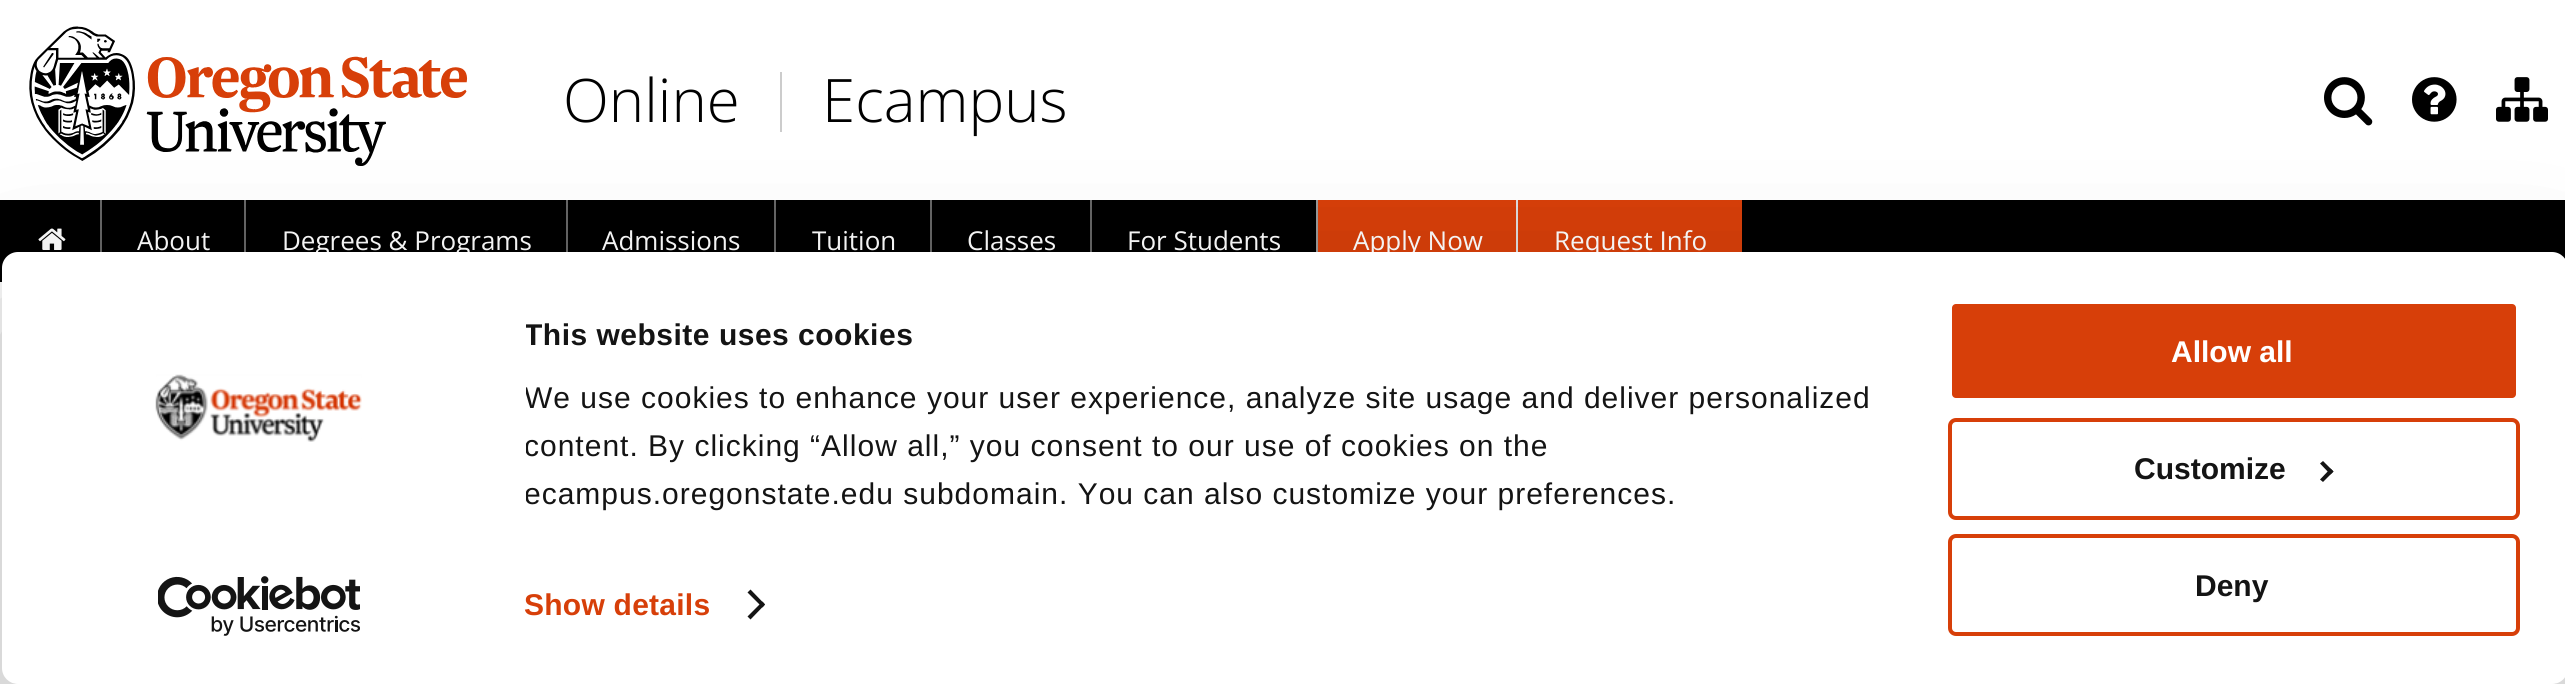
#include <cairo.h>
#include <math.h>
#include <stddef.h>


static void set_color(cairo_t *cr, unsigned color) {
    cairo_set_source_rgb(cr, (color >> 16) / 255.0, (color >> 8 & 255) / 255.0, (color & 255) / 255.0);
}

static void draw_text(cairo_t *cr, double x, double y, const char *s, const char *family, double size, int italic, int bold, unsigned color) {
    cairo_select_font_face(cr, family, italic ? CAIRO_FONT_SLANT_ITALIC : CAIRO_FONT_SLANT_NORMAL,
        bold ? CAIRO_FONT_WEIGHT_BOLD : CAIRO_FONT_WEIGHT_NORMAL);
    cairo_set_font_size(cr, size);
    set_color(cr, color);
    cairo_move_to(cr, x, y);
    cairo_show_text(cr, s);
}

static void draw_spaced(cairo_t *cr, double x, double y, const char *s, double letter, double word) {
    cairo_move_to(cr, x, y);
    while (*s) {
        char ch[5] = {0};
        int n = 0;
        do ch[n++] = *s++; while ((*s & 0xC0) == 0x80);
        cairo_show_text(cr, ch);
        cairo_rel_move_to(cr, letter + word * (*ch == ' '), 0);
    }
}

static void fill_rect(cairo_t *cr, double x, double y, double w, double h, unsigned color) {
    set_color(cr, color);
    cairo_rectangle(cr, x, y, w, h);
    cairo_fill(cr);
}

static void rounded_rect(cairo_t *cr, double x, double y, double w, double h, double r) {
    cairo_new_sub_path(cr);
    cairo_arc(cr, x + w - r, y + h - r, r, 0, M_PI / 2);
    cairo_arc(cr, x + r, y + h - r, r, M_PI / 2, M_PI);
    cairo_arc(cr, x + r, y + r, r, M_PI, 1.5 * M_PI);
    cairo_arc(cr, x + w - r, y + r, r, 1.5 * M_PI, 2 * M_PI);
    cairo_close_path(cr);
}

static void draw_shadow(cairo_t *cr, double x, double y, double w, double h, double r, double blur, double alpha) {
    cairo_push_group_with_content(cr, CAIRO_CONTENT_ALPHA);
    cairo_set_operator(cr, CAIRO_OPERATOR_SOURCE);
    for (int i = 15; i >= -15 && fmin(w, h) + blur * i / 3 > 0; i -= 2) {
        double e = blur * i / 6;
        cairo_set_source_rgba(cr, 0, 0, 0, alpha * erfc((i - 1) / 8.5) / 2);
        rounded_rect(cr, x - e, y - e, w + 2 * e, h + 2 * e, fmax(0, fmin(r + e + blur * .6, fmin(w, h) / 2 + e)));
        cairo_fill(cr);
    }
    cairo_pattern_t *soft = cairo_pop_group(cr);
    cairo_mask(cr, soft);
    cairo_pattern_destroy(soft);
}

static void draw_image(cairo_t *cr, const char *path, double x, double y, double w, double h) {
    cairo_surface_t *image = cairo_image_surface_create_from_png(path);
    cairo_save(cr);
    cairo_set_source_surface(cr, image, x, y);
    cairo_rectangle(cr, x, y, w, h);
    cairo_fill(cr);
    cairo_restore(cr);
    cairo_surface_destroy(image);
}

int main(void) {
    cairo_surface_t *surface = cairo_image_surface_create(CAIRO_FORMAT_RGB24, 2565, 684);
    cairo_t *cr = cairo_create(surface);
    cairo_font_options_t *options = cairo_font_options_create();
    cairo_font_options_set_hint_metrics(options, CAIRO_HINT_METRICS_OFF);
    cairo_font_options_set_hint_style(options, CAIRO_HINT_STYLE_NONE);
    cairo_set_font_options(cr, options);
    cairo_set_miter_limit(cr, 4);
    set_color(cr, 0xFFFFFF);
    cairo_paint(cr);
    draw_image(cr, "assets/img1.png", 29, 26, 439, 140);
    draw_text(cr, 563, 122, "Online", "Open Sans Light", 60, 0, 0, 0x000000);
    fill_rect(cr, 780, 72, 2, 60, 0xCCCCCC);
    draw_text(cr, 822, 122, "Ecampus", "Open Sans Light", 60, 0, 0, 0x000000);
    fill_rect(cr, 0, 200, 2565, 82, 0x000000);
    draw_image(cr, "assets/img2.png", 38, 228, 28, 22);
    fill_rect(cr, 100, 200, 2, 52, 0x666666);
    draw_text(cr, 137, 250, "About", "Open Sans", 26, 0, 0, 0xFFFFFF);
    fill_rect(cr, 244, 200, 2, 52, 0x666666);
    draw_text(cr, 282, 250, "Degrees & Programs", "Open Sans", 26, 0, 0, 0xFFFFFF);
    fill_rect(cr, 566, 200, 2, 52, 0x666666);
    draw_text(cr, 602, 250, "Admissions", "Open Sans", 26, 0, 0, 0xFFFFFF);
    fill_rect(cr, 774, 200, 2, 52, 0x666666);
    draw_text(cr, 812, 250, "Tuition", "Open Sans", 26, 0, 0, 0xFFFFFF);
    fill_rect(cr, 930, 200, 2, 52, 0x666666);
    draw_text(cr, 967, 250, "Classes", "Open Sans", 26, 0, 0, 0xFFFFFF);
    fill_rect(cr, 1090, 200, 2, 52, 0x666666);
    draw_text(cr, 1127, 250, "For Students", "Open Sans", 26, 0, 0, 0xFFFFFF);
    fill_rect(cr, 1316, 200, 2, 52, 0x999999);
    fill_rect(cr, 1318, 200, 198, 52, 0xD73F09);
    draw_text(cr, 1353, 250, "Apply Now", "Open Sans", 26, 0, 0, 0xFFFFFF);
    fill_rect(cr, 1516, 200, 2, 52, 0xDDDDDD);
    fill_rect(cr, 1518, 200, 224, 52, 0xD73F09);
    draw_text(cr, 1554, 250, "Request Info", "Open Sans", 26, 0, 0, 0xFFFFFF);
    draw_image(cr, "assets/img3.png", 2324, 77, 49, 49);
    draw_image(cr, "assets/img4.png", 2412, 77, 45, 45);
    draw_image(cr, "assets/img5.png", 2496, 77, 52, 45);
    set_color(cr, 0x000000);
    draw_shadow(cr, 2, 312, 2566, 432, 16, 70, 0.3);
    set_color(cr, 0xFFFFFF);
    rounded_rect(cr, 2, 252, 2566, 432, 16);
    cairo_fill(cr);
    draw_image(cr, "assets/img6.png", 155, 374, 207, 68);
    draw_image(cr, "assets/img7.png", 158, 576, 202, 60);
    cairo_save(cr);
    cairo_rectangle(cr, 526, 312, 1410, 206);
    cairo_clip(cr);
    cairo_select_font_face(cr, "Liberation Sans", CAIRO_FONT_SLANT_NORMAL, CAIRO_FONT_WEIGHT_BOLD);
    cairo_set_font_size(cr, 30);
    set_color(cr, 0x141414);
    draw_spaced(cr, 524, 345, "This website uses cookies", 0.5, 0);
    cairo_select_font_face(cr, "Liberation Sans", CAIRO_FONT_SLANT_NORMAL, CAIRO_FONT_WEIGHT_NORMAL);
    draw_spaced(cr, 524, 408, "We use cookies to enhance your user experience, analyze site usage and deliver personalized", 1, 0);
    draw_spaced(cr, 524, 456, "content. By clicking “Allow all,” you consent to our use of cookies on the", 1, 0);
    draw_spaced(cr, 524, 504, "ecampus.oregonstate.edu subdomain. You can also customize your preferences.", 1, 0);
    cairo_restore(cr);
    cairo_select_font_face(cr, "Liberation Sans", CAIRO_FONT_SLANT_NORMAL, CAIRO_FONT_WEIGHT_BOLD);
    cairo_set_font_size(cr, 30);
    set_color(cr, 0xD73F09);
    draw_spaced(cr, 524, 615, "Show details", 0.25, 0);
    set_color(cr, 0x141414);
    cairo_new_path(cr);
    cairo_move_to(cr, 750.5, 589.5);
    cairo_line_to(cr, 765, 604.5);
    cairo_line_to(cr, 762.5, 607.5);
    cairo_line_to(cr, 747.5, 592.5);
    cairo_close_path(cr);
    cairo_fill(cr);
    cairo_new_path(cr);
    cairo_move_to(cr, 762.5, 601.5);
    cairo_line_to(cr, 765, 604.5);
    cairo_line_to(cr, 750.5, 619.5);
    cairo_line_to(cr, 747.5, 616.5);
    cairo_close_path(cr);
    cairo_fill(cr);
    set_color(cr, 0xD73F09);
    rounded_rect(cr, 1950, 302, 568, 98, 6);
    cairo_fill_preserve(cr);
    set_color(cr, 0xFFFFFF);
    cairo_set_line_width(cr, 4);
    cairo_stroke(cr);
    draw_text(cr, 2171, 362, "Allow all", "Liberation Sans", 30, 0, 1, 0xFFFFFF);
    rounded_rect(cr, 1950, 420, 568, 98, 6);
    set_color(cr, 0xD73F09);
    cairo_stroke(cr);
    draw_text(cr, 2134, 479, "Customize", "Liberation Sans", 30, 0, 1, 0x141414);
    cairo_new_path(cr);
    cairo_move_to(cr, 2323, 461);
    cairo_line_to(cr, 2333.5, 471.5);
    cairo_line_to(cr, 2330.5, 474.5);
    cairo_line_to(cr, 2320, 463.5);
    cairo_close_path(cr);
    cairo_fill(cr);
    cairo_new_path(cr);
    cairo_move_to(cr, 2330.5, 468.5);
    cairo_line_to(cr, 2333.5, 471.5);
    cairo_line_to(cr, 2323, 482);
    cairo_line_to(cr, 2320, 479.5);
    cairo_close_path(cr);
    cairo_fill(cr);
    rounded_rect(cr, 1950, 536, 568, 98, 6);
    set_color(cr, 0xD73F09);
    cairo_stroke(cr);
    draw_text(cr, 2195, 596, "Deny", "Liberation Sans", 30, 0, 1, 0x141414);
    cairo_surface_write_to_png(surface, "output.png");
    cairo_font_options_destroy(options);
    cairo_destroy(cr);
    cairo_surface_destroy(surface);
    return 0;
}
